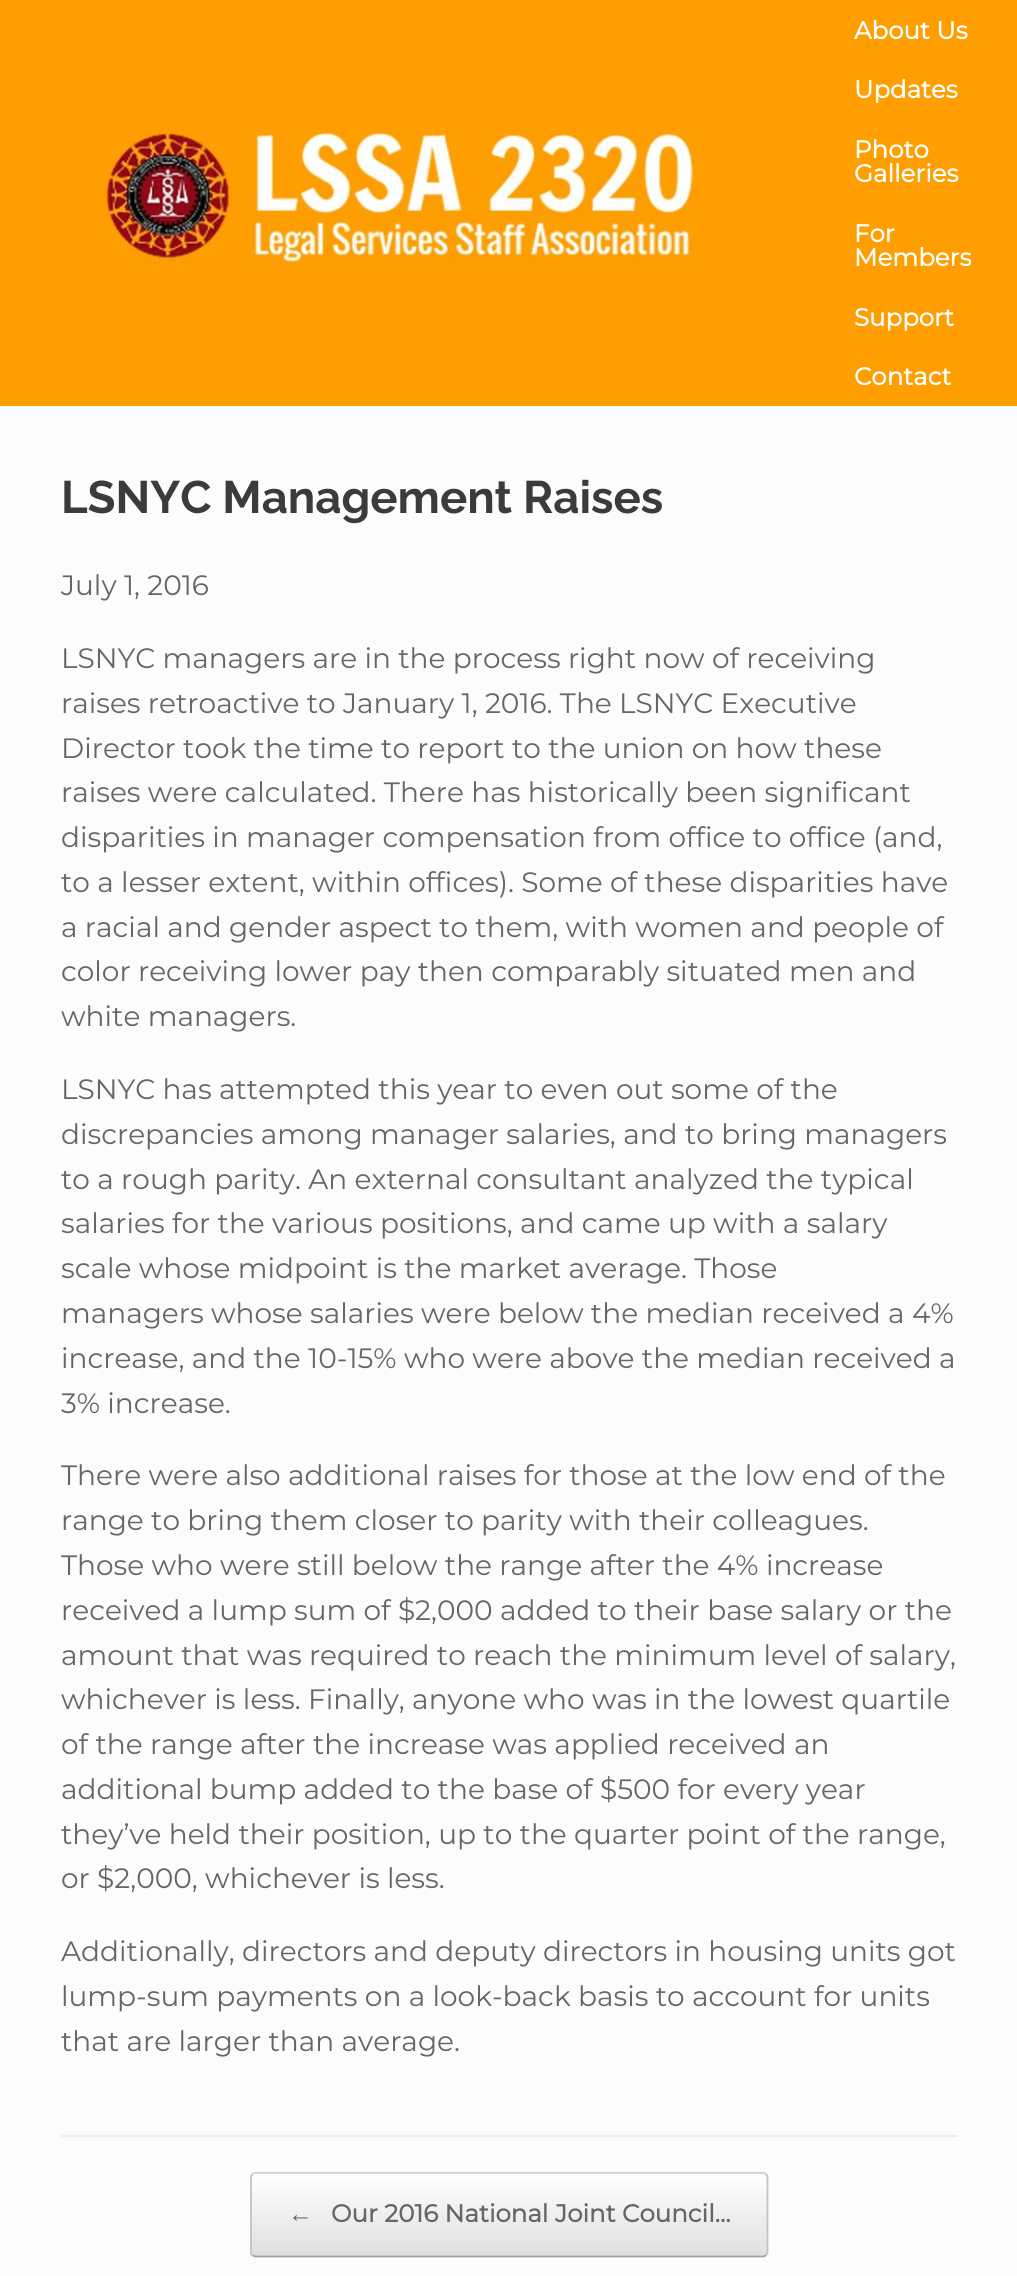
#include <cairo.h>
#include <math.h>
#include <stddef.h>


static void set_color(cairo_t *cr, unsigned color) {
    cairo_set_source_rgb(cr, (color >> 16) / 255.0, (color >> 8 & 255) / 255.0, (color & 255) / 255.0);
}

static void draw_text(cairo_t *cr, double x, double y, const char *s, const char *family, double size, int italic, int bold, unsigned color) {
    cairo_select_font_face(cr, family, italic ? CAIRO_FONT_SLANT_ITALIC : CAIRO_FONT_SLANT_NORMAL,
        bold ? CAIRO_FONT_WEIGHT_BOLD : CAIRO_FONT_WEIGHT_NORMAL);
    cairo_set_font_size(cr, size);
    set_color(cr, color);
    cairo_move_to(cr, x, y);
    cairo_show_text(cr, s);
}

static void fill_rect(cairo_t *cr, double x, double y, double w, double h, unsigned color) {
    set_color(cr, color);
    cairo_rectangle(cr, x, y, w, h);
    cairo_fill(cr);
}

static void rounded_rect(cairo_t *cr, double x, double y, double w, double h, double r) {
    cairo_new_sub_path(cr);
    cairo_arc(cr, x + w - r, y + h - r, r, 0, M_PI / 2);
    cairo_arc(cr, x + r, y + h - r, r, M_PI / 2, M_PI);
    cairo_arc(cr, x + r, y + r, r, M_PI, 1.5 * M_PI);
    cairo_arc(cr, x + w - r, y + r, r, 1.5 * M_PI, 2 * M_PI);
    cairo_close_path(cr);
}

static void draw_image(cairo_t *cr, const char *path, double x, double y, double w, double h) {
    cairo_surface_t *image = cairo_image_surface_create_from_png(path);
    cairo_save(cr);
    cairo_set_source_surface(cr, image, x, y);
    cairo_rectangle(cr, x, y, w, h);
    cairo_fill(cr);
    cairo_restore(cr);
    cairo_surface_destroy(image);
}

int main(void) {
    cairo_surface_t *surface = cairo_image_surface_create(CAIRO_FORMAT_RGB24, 1017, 2276);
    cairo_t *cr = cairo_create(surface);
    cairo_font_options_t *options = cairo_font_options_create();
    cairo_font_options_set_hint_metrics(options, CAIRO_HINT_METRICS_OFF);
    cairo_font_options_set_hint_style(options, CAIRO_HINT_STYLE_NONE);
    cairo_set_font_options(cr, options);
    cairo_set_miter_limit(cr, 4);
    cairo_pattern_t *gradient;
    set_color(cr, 0xFCFCFC);
    cairo_paint(cr);
    fill_rect(cr, 0, 0, 1017, 406, 0xFF9E00);
    draw_image(cr, "assets/img1.png", 102, 131, 597, 134);
    draw_text(cr, 854, 39, "About Us", "Montserrat", 24.5, 0, 1, 0xFFFFFF);
    draw_text(cr, 854, 98, "Updates", "Montserrat", 24.5, 0, 1, 0xFFFFFF);
    draw_text(cr, 854, 158, "Photo", "Montserrat", 24.5, 0, 1, 0xFFFFFF);
    draw_text(cr, 854, 182, "Galleries", "Montserrat", 24.5, 0, 1, 0xFFFFFF);
    draw_text(cr, 854, 242, "For", "Montserrat", 24.5, 0, 1, 0xFFFFFF);
    draw_text(cr, 854, 266, "Members", "Montserrat", 24.5, 0, 1, 0xFFFFFF);
    draw_text(cr, 854, 326, "Support", "Montserrat", 24.5, 0, 1, 0xFFFFFF);
    draw_text(cr, 854, 385, "Contact", "Montserrat", 24.5, 0, 1, 0xFFFFFF);
    fill_rect(cr, 61, 2135, 896, 2, 0xEEEEEE);
    draw_text(cr, 61, 513, "LSNYC Management Raises", "Raleway Thin", 45.5, 0, 0, 0x3B3B3B);
    draw_text(cr, 61, 595, "July 1, 2016", "Montserrat Thin", 28, 0, 0, 0x666666);
    draw_text(cr, 61, 668, "LSNYC managers are in the process right now of receiving", "Montserrat Thin", 28, 0, 0, 0x666666);
    draw_text(cr, 61, 713, "raises retroactive to January 1, 2016. The LSNYC Executive", "Montserrat Thin", 28, 0, 0, 0x666666);
    draw_text(cr, 61, 758, "Director took the time to report to the union on how these", "Montserrat Thin", 28, 0, 0, 0x666666);
    draw_text(cr, 61, 802, "raises were calculated. There has historically been significant", "Montserrat Thin", 28, 0, 0, 0x666666);
    draw_text(cr, 61, 847, "disparities in manager compensation from office to office (and,", "Montserrat Thin", 28, 0, 0, 0x666666);
    draw_text(cr, 61, 892, "to a lesser extent, within offices). Some of these disparities have", "Montserrat Thin", 28, 0, 0, 0x666666);
    draw_text(cr, 61, 937, "a racial and gender aspect to them, with women and people of", "Montserrat Thin", 28, 0, 0, 0x666666);
    draw_text(cr, 61, 981, "color receiving lower pay then comparably situated men and", "Montserrat Thin", 28, 0, 0, 0x666666);
    draw_text(cr, 61, 1026, "white managers.", "Montserrat Thin", 28, 0, 0, 0x666666);
    draw_text(cr, 61, 1099, "LSNYC has attempted this year to even out some of the", "Montserrat Thin", 28, 0, 0, 0x666666);
    draw_text(cr, 61, 1144, "discrepancies among manager salaries, and to bring managers", "Montserrat Thin", 28, 0, 0, 0x666666);
    draw_text(cr, 61, 1189, "to a rough parity. An external consultant analyzed the typical", "Montserrat Thin", 28, 0, 0, 0x666666);
    draw_text(cr, 61, 1233, "salaries for the various positions, and came up with a salary", "Montserrat Thin", 28, 0, 0, 0x666666);
    draw_text(cr, 61, 1278, "scale whose midpoint is the market average. Those", "Montserrat Thin", 28, 0, 0, 0x666666);
    draw_text(cr, 61, 1323, "managers whose salaries were below the median received a 4%", "Montserrat Thin", 28, 0, 0, 0x666666);
    draw_text(cr, 61, 1368, "increase, and the 10-15% who were above the median received a", "Montserrat Thin", 28, 0, 0, 0x666666);
    draw_text(cr, 61, 1413, "3% increase.", "Montserrat Thin", 28, 0, 0, 0x666666);
    draw_text(cr, 61, 1485, "There were also additional raises for those at the low end of the", "Montserrat Thin", 28, 0, 0, 0x666666);
    draw_text(cr, 61, 1530, "range to bring them closer to parity with their colleagues.", "Montserrat Thin", 28, 0, 0, 0x666666);
    draw_text(cr, 61, 1575, "Those who were still below the range after the 4% increase", "Montserrat Thin", 28, 0, 0, 0x666666);
    draw_text(cr, 61, 1620, "received a lump sum of $2,000 added to their base salary or the", "Montserrat Thin", 28, 0, 0, 0x666666);
    draw_text(cr, 61, 1665, "amount that was required to reach the minimum level of salary,", "Montserrat Thin", 28, 0, 0, 0x666666);
    draw_text(cr, 61, 1709, "whichever is less. Finally, anyone who was in the lowest quartile", "Montserrat Thin", 28, 0, 0, 0x666666);
    draw_text(cr, 61, 1754, "of the range after the increase was applied received an", "Montserrat Thin", 28, 0, 0, 0x666666);
    draw_text(cr, 61, 1799, "additional bump added to the base of $500 for every year", "Montserrat Thin", 28, 0, 0, 0x666666);
    draw_text(cr, 61, 1844, "they’ve held their position, up to the quarter point of the range,", "Montserrat Thin", 28, 0, 0, 0x666666);
    draw_text(cr, 61, 1888, "or $2,000, whichever is less.", "Montserrat Thin", 28, 0, 0, 0x666666);
    draw_text(cr, 61, 1961, "Additionally, directors and deputy directors in housing units got", "Montserrat Thin", 28, 0, 0, 0x666666);
    draw_text(cr, 61, 2006, "lump-sum payments on a look-back basis to account for units", "Montserrat Thin", 28, 0, 0, 0x666666);
    draw_text(cr, 61, 2051, "that are larger than average.", "Montserrat Thin", 28, 0, 0, 0x666666);
    cairo_save(cr);
    rounded_rect(cr, 250, 2172, 518, 86, 5);
    cairo_clip(cr);
    gradient = cairo_pattern_create_linear(252, 2174, 252, 2091);
    cairo_pattern_add_color_stop_rgba(gradient, 0, 0.875, 0.875, 0.875, 1);
    cairo_pattern_add_color_stop_rgba(gradient, 1, 1, 1, 1, 1);
    cairo_set_source(cr, gradient);
    cairo_pattern_destroy(gradient);
    cairo_rectangle(cr, 250, 2172, 518, 2);
    cairo_fill(cr);
    gradient = cairo_pattern_create_linear(252, 2256, 252, 2174);
    cairo_pattern_add_color_stop_rgba(gradient, 0, 0.875, 0.875, 0.875, 1);
    cairo_pattern_add_color_stop_rgba(gradient, 1, 1, 1, 1, 1);
    cairo_set_source(cr, gradient);
    cairo_pattern_destroy(gradient);
    cairo_rectangle(cr, 250, 2174, 518, 82);
    cairo_fill(cr);
    gradient = cairo_pattern_create_linear(252, 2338, 252, 2256);
    cairo_pattern_add_color_stop_rgba(gradient, 0, 0.875, 0.875, 0.875, 1);
    cairo_pattern_add_color_stop_rgba(gradient, 1, 1, 1, 1, 1);
    cairo_set_source(cr, gradient);
    cairo_pattern_destroy(gradient);
    cairo_rectangle(cr, 250, 2256, 518, 2);
    cairo_fill(cr);
    cairo_restore(cr);
    cairo_save(cr);
    cairo_rectangle(cr, 61, 2172, 896, 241);
    cairo_clip(cr);
    cairo_new_path(cr);
    cairo_move_to(cr, 252.5, 2174);
    cairo_line_to(cr, 255.5, 2172.5);
    cairo_line_to(cr, 763, 2172.5);
    cairo_line_to(cr, 766, 2174);
    set_color(cr, 0xD2D2D2);
    cairo_set_line_width(cr, 1.8);
    cairo_stroke(cr);
    cairo_restore(cr);
    cairo_new_path(cr);
    cairo_move_to(cr, 766, 2174);
    cairo_line_to(cr, 767.5, 2176.5);
    cairo_line_to(cr, 767.5, 2252.5);
    cairo_line_to(cr, 766, 2255.5);
    set_color(cr, 0xC3C3C3);
    cairo_set_line_width(cr, 1.8);
    cairo_stroke(cr);
    cairo_new_path(cr);
    cairo_move_to(cr, 766, 2255.5);
    cairo_line_to(cr, 763, 2256.5);
    cairo_line_to(cr, 255.5, 2256.5);
    cairo_line_to(cr, 252.5, 2255.5);
    set_color(cr, 0x9F9F9F);
    cairo_stroke(cr);
    cairo_new_path(cr);
    cairo_move_to(cr, 252.5, 2255.5);
    cairo_line_to(cr, 251, 2252.5);
    cairo_line_to(cr, 251, 2176.5);
    cairo_line_to(cr, 252.5, 2174);
    set_color(cr, 0xC3C3C3);
    cairo_stroke(cr);
    draw_text(cr, 288, 2222, "←", "Liberation Serif", 24.5, 0, 1, 0x666666);
    draw_text(cr, 331, 2222, "Our 2016 National Joint Council…", "Montserrat", 24.5, 0, 1, 0x666666);
    cairo_surface_write_to_png(surface, "output.png");
    cairo_font_options_destroy(options);
    cairo_destroy(cr);
    cairo_surface_destroy(surface);
    return 0;
}
